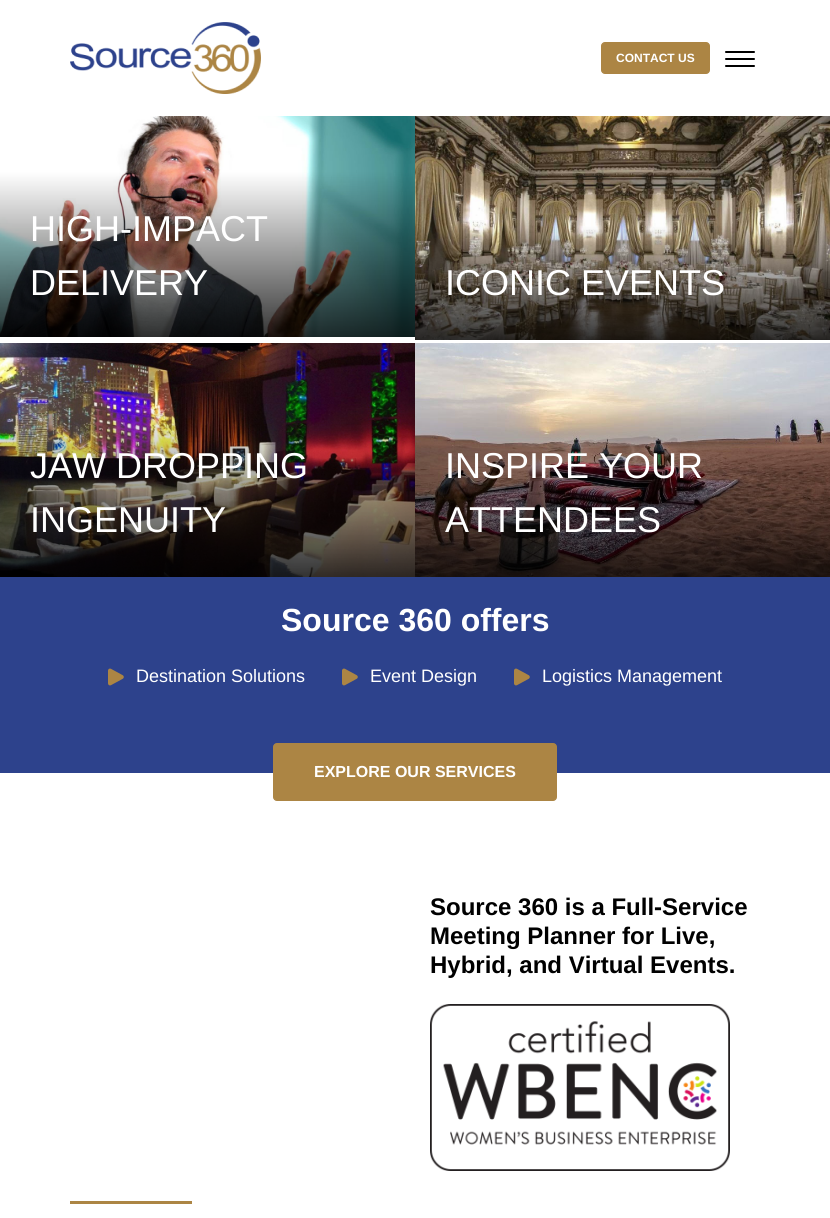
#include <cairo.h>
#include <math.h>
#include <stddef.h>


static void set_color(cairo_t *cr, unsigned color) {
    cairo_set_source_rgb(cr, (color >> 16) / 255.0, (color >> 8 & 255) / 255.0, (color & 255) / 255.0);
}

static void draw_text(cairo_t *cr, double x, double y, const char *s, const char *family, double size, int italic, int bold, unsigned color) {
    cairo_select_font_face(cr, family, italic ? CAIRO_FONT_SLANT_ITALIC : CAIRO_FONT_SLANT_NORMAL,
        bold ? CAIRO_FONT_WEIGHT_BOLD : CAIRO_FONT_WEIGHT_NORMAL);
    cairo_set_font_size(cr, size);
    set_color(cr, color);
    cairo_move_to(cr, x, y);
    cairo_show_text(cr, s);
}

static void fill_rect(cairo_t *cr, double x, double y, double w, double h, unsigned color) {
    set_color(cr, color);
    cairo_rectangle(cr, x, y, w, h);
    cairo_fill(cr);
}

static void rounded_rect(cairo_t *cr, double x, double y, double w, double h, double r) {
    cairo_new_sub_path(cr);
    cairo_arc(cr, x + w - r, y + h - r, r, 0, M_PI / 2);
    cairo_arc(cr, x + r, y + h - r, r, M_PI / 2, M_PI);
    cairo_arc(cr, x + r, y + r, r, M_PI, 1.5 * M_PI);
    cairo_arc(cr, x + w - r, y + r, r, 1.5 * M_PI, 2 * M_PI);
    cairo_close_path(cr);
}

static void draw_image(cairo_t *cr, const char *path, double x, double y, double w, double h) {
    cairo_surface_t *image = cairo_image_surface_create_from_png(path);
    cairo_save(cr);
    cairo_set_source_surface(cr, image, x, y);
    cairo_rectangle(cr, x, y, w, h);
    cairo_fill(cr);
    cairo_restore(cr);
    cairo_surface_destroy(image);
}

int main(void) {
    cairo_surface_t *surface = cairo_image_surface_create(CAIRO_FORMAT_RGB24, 830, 1218);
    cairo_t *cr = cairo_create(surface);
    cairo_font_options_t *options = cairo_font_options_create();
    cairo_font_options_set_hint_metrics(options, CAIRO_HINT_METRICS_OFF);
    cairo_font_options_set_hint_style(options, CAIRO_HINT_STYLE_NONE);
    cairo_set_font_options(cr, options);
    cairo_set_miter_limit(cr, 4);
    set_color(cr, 0xFFFFFF);
    cairo_paint(cr);
    draw_image(cr, "assets/img1.png", 70, 22, 191, 72);
    set_color(cr, 0xAC8544);
    rounded_rect(cr, 601.5, 42.5, 108, 31, 3.5);
    cairo_fill_preserve(cr);
    cairo_set_line_width(cr, 1);
    cairo_stroke(cr);
    draw_text(cr, 616, 62, "CONTACT US", "Liberation Sans", 12, 0, 1, 0xFFFFFF);
    set_color(cr, 0x000000);
    rounded_rect(cr, 725, 51, 30, 2, 1);
    cairo_fill(cr);
    rounded_rect(cr, 725, 58, 30, 2, 1);
    cairo_fill(cr);
    rounded_rect(cr, 725, 65, 30, 2, 1);
    cairo_fill(cr);
    draw_image(cr, "assets/img2.png", 0, 116, 415, 221);
    draw_text(cr, 30, 241, "HIGH-IMPACT", "Liberation Sans", 36, 0, 0, 0xFFFFFF);
    draw_text(cr, 30, 295, "DELIVERY", "Liberation Sans", 36, 0, 0, 0xFFFFFF);
    draw_image(cr, "assets/img3.png", 415, 116, 415, 224);
    draw_text(cr, 445, 295, "ICONIC EVENTS", "Liberation Sans", 36, 0, 0, 0xFFFFFF);
    draw_image(cr, "assets/img4.png", 0, 343, 415, 234);
    draw_text(cr, 30, 478, "JAW DROPPING", "Liberation Sans", 36, 0, 0, 0xFFFFFF);
    draw_text(cr, 30, 532, "INGENUITY", "Liberation Sans", 36, 0, 0, 0xFFFFFF);
    draw_image(cr, "assets/img5.png", 415, 343, 415, 234);
    draw_text(cr, 445, 478, "INSPIRE YOUR", "Liberation Sans", 36, 0, 0, 0xFFFFFF);
    draw_text(cr, 445, 532, "ATTENDEES", "Liberation Sans", 36, 0, 0, 0xFFFFFF);
    fill_rect(cr, 0, 577, 830, 196, 0x2D428C);
    draw_text(cr, 281, 631, "Source 360 offers", "Liberation Sans", 32, 0, 1, 0xFFFFFF);
    draw_image(cr, "assets/img6.png", 108, 668, 16, 18);
    draw_text(cr, 136, 682, "Destination Solutions", "Liberation Sans", 18, 0, 0, 0xFFFFFF);
    draw_image(cr, "assets/img6.png", 342, 668, 16, 18);
    draw_text(cr, 370, 682, "Event Design", "Liberation Sans", 18, 0, 0, 0xFFFFFF);
    draw_image(cr, "assets/img6.png", 514, 668, 16, 18);
    draw_text(cr, 542, 682, "Logistics Management", "Liberation Sans", 18, 0, 0, 0xFFFFFF);
    set_color(cr, 0xAC8544);
    rounded_rect(cr, 273.5, 743.5, 283, 57, 3.5);
    cairo_fill_preserve(cr);
    cairo_stroke(cr);
    draw_text(cr, 314, 777, "EXPLORE OUR SERVICES", "Liberation Sans", 16, 0, 1, 0xFFFFFF);
    draw_text(cr, 430, 915, "Source 360 is a Full-Service", "Liberation Sans", 24, 0, 1, 0x000000);
    draw_text(cr, 430, 944, "Meeting Planner for Live,", "Liberation Sans", 24, 0, 1, 0x000000);
    draw_text(cr, 430, 973, "Hybrid, and Virtual Events.", "Liberation Sans", 24, 0, 1, 0x000000);
    draw_image(cr, "assets/img7.png", 430, 1004, 300, 167);
    fill_rect(cr, 70, 1201, 122, 3, 0xAC8544);
    cairo_surface_write_to_png(surface, "output.png");
    cairo_font_options_destroy(options);
    cairo_destroy(cr);
    cairo_surface_destroy(surface);
    return 0;
}
